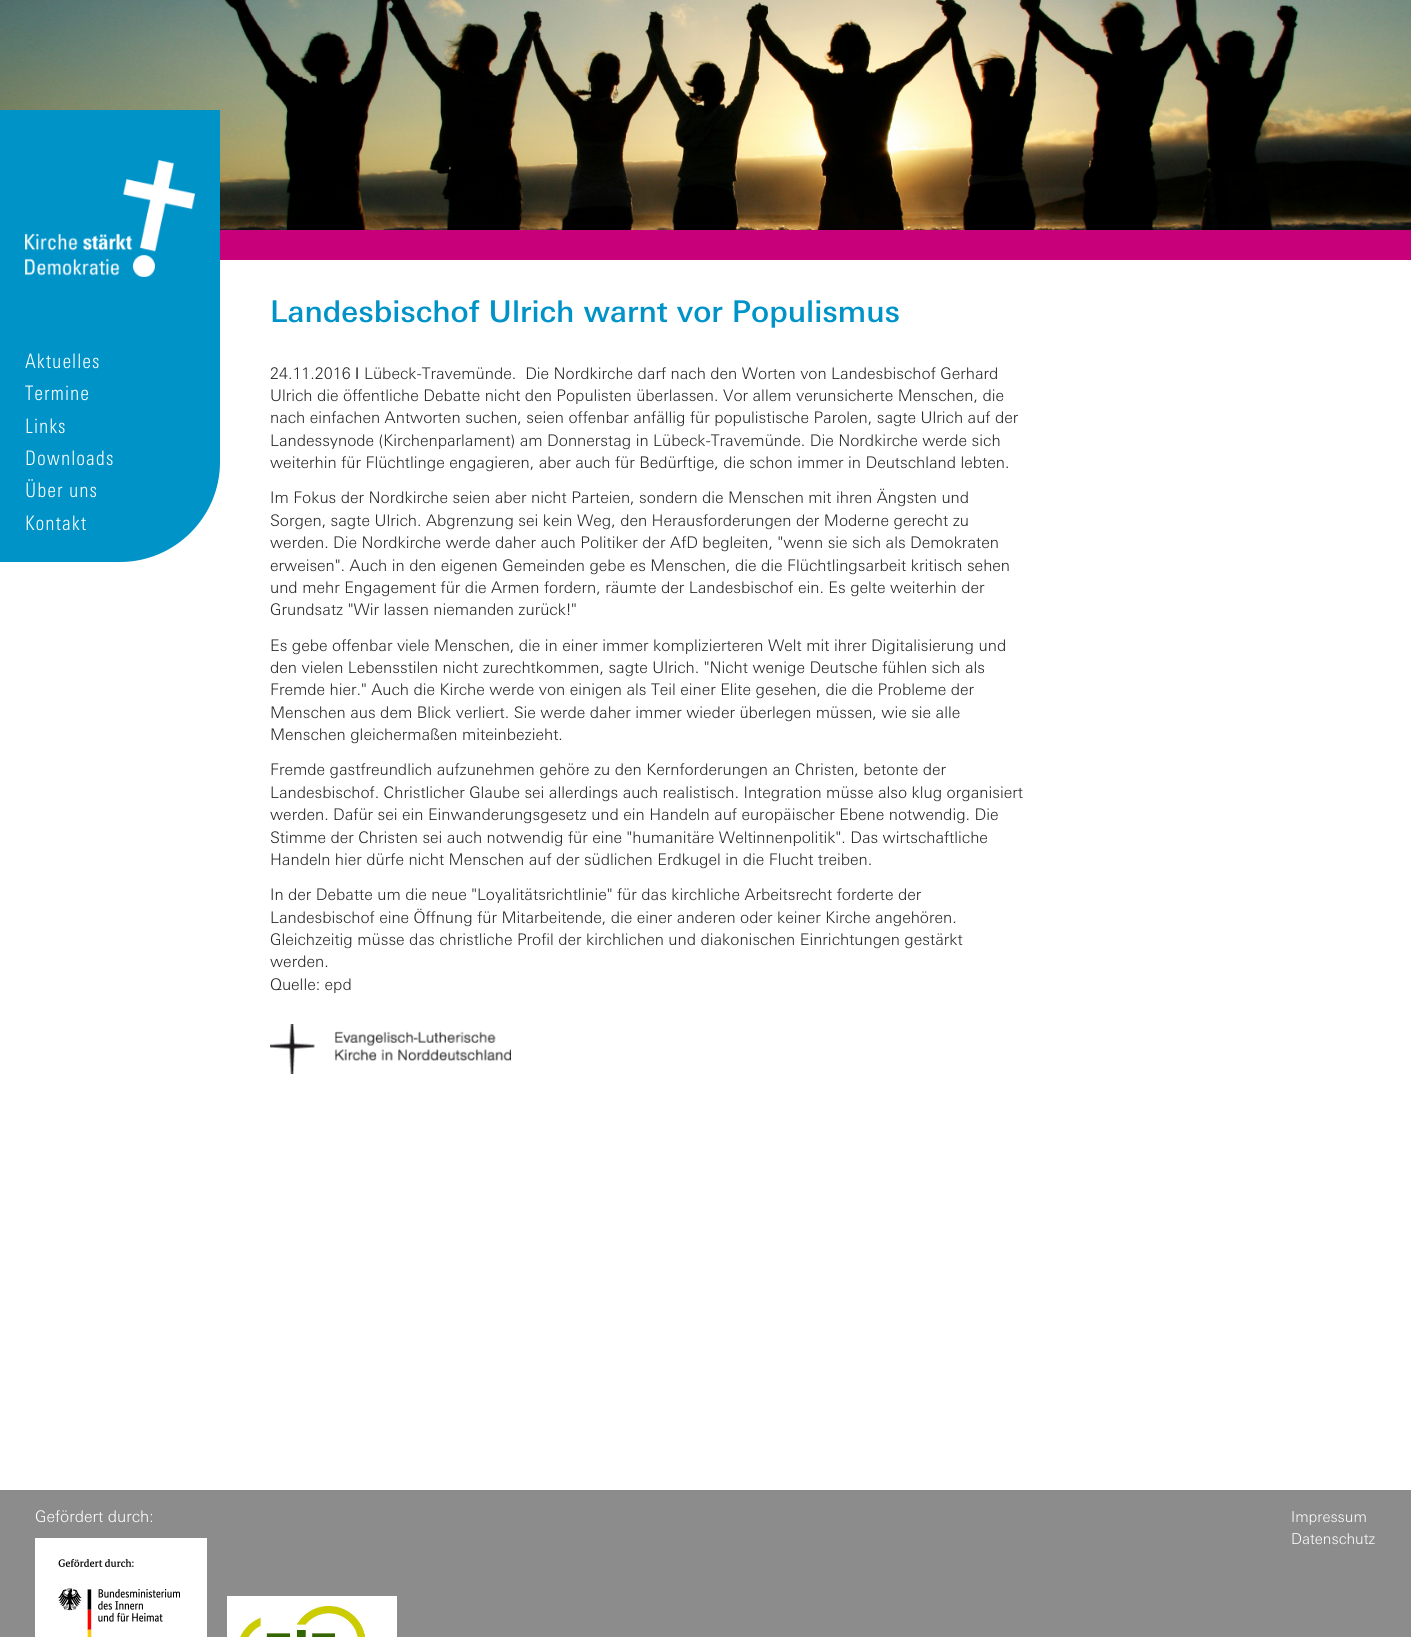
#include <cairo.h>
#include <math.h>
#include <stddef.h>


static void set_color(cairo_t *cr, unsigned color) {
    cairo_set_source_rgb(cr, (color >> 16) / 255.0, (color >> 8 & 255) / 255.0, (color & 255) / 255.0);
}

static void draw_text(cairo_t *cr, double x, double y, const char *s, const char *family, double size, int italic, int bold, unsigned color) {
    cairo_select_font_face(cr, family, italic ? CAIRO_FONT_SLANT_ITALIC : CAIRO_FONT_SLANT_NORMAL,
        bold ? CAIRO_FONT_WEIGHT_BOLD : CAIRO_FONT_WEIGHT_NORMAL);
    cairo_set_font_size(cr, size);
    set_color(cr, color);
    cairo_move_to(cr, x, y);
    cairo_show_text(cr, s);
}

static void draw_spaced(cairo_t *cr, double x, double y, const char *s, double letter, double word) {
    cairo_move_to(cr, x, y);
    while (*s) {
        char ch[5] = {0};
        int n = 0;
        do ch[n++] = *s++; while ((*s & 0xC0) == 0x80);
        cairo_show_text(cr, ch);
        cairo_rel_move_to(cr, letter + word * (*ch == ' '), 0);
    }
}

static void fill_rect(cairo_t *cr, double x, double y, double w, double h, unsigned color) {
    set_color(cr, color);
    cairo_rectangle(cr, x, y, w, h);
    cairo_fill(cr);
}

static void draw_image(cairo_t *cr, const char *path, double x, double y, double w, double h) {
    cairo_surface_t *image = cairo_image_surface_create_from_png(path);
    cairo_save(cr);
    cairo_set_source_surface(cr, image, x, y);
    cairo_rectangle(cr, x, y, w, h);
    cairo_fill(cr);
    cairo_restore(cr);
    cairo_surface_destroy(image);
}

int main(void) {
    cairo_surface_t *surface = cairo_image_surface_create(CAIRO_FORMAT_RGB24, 1411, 1637);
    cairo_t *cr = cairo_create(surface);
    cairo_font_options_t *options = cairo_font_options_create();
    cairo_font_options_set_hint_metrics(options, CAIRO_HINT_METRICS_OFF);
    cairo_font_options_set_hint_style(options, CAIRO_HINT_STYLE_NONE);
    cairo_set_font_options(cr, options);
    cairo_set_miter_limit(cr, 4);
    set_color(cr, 0xFFFFFF);
    cairo_paint(cr);
    draw_image(cr, "assets/img2.png", 0, 0, 1411, 230);
    set_color(cr, 0x0093C8);
    cairo_new_path(cr);
    cairo_move_to(cr, 0, 110);
    cairo_line_to(cr, 220, 110);
    cairo_line_to(cr, 220, 462);
    cairo_curve_to(cr, 220, 517, 175, 562, 120, 562);
    cairo_line_to(cr, 0, 562);
    cairo_close_path(cr);
    cairo_fill(cr);
    draw_image(cr, "assets/img1.png", 25, 160, 170, 117);
    cairo_select_font_face(cr, "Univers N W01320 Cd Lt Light", CAIRO_FONT_SLANT_NORMAL, CAIRO_FONT_WEIGHT_NORMAL);
    cairo_set_font_size(cr, 20);
    set_color(cr, 0xFFFFFF);
    draw_spaced(cr, 25, 368, "Aktuelles", 1, 0);
    draw_spaced(cr, 25, 400, "Termine", 1, 0);
    draw_spaced(cr, 25, 433, "Links", 1, 0);
    draw_spaced(cr, 25, 465, "Downloads", 1, 0);
    draw_spaced(cr, 25, 497, "Über uns", 1, 0);
    draw_spaced(cr, 25, 530, "Kontakt", 1, 0);
    fill_rect(cr, 220, 230, 1191, 30, 0xC8017B);
    draw_text(cr, 270, 322, "Landesbischof Ulrich warnt vor Populismus", "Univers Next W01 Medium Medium", 30, 0, 0, 0x0093C8);
    draw_text(cr, 270, 379, "24.11.2016", "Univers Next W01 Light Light", 16, 0, 0, 0x262626);
    draw_text(cr, 355, 379, "ǀ", "Liberation Sans", 16, 0, 0, 0x262626);
    draw_text(cr, 364, 379, "Lübeck-Travemünde.  Die Nordkirche darf nach den Worten von Landesbischof Gerhard", "Univers Next W01 Light Light", 16, 0, 0, 0x262626);
    draw_text(cr, 270, 401, "Ulrich die öffentliche Debatte nicht den Populisten überlassen. Vor allem verunsicherte Menschen, die", "Univers Next W01 Light Light", 16, 0, 0, 0x262626);
    draw_text(cr, 270, 423, "nach einfachen Antworten suchen, seien offenbar anfällig für populistische Parolen, sagte Ulrich auf der", "Univers Next W01 Light Light", 16, 0, 0, 0x262626);
    draw_text(cr, 270, 446, "Landessynode (Kirchenparlament) am Donnerstag in Lübeck-Travemünde. Die Nordkirche werde sich", "Univers Next W01 Light Light", 16, 0, 0, 0x262626);
    draw_text(cr, 270, 468, "weiterhin für Flüchtlinge engagieren, aber auch für Bedürftige, die schon immer in Deutschland lebten.", "Univers Next W01 Light Light", 16, 0, 0, 0x262626);
    draw_text(cr, 270, 503, "Im Fokus der Nordkirche seien aber nicht Parteien, sondern die Menschen mit ihren Ängsten und", "Univers Next W01 Light Light", 16, 0, 0, 0x262626);
    draw_text(cr, 270, 526, "Sorgen, sagte Ulrich. Abgrenzung sei kein Weg, den Herausforderungen der Moderne gerecht zu", "Univers Next W01 Light Light", 16, 0, 0, 0x262626);
    draw_text(cr, 270, 548, "werden. Die Nordkirche werde daher auch Politiker der AfD begleiten, \"wenn sie sich als Demokraten", "Univers Next W01 Light Light", 16, 0, 0, 0x262626);
    draw_text(cr, 270, 571, "erweisen\". Auch in den eigenen Gemeinden gebe es Menschen, die die Flüchtlingsarbeit kritisch sehen", "Univers Next W01 Light Light", 16, 0, 0, 0x262626);
    draw_text(cr, 270, 593, "und mehr Engagement für die Armen fordern, räumte der Landesbischof ein. Es gelte weiterhin der", "Univers Next W01 Light Light", 16, 0, 0, 0x262626);
    draw_text(cr, 270, 615, "Grundsatz \"Wir lassen niemanden zurück!\"", "Univers Next W01 Light Light", 16, 0, 0, 0x262626);
    draw_text(cr, 270, 651, "Es gebe offenbar viele Menschen, die in einer immer komplizierteren Welt mit ihrer Digitalisierung und", "Univers Next W01 Light Light", 16, 0, 0, 0x262626);
    draw_text(cr, 270, 673, "den vielen Lebensstilen nicht zurechtkommen, sagte Ulrich. \"Nicht wenige Deutsche fühlen sich als", "Univers Next W01 Light Light", 16, 0, 0, 0x262626);
    draw_text(cr, 270, 695, "Fremde hier.\" Auch die Kirche werde von einigen als Teil einer Elite gesehen, die die Probleme der", "Univers Next W01 Light Light", 16, 0, 0, 0x262626);
    draw_text(cr, 270, 718, "Menschen aus dem Blick verliert. Sie werde daher immer wieder überlegen müssen, wie sie alle", "Univers Next W01 Light Light", 16, 0, 0, 0x262626);
    draw_text(cr, 270, 740, "Menschen gleichermaßen miteinbezieht.", "Univers Next W01 Light Light", 16, 0, 0, 0x262626);
    draw_text(cr, 270, 775, "Fremde gastfreundlich aufzunehmen gehöre zu den Kernforderungen an Christen, betonte der", "Univers Next W01 Light Light", 16, 0, 0, 0x262626);
    draw_text(cr, 270, 798, "Landesbischof. Christlicher Glaube sei allerdings auch realistisch. Integration müsse also klug organisiert", "Univers Next W01 Light Light", 16, 0, 0, 0x262626);
    draw_text(cr, 270, 820, "werden. Dafür sei ein Einwanderungsgesetz und ein Handeln auf europäischer Ebene notwendig. Die", "Univers Next W01 Light Light", 16, 0, 0, 0x262626);
    draw_text(cr, 270, 843, "Stimme der Christen sei auch notwendig für eine \"humanitäre Weltinnenpolitik\". Das wirtschaftliche", "Univers Next W01 Light Light", 16, 0, 0, 0x262626);
    draw_text(cr, 270, 865, "Handeln hier dürfe nicht Menschen auf der südlichen Erdkugel in die Flucht treiben.", "Univers Next W01 Light Light", 16, 0, 0, 0x262626);
    draw_text(cr, 270, 900, "In der Debatte um die neue \"Loyalitätsrichtlinie\" für das kirchliche Arbeitsrecht forderte der", "Univers Next W01 Light Light", 16, 0, 0, 0x262626);
    draw_text(cr, 270, 923, "Landesbischof eine Öffnung für Mitarbeitende, die einer anderen oder keiner Kirche angehören.", "Univers Next W01 Light Light", 16, 0, 0, 0x262626);
    draw_text(cr, 270, 945, "Gleichzeitig müsse das christliche Profil der kirchlichen und diakonischen Einrichtungen gestärkt", "Univers Next W01 Light Light", 16, 0, 0, 0x262626);
    draw_text(cr, 270, 967, "werden.", "Univers Next W01 Light Light", 16, 0, 0, 0x262626);
    draw_text(cr, 270, 990, "Quelle: epd", "Univers Next W01 Light Light", 16, 0, 0, 0x262626);
    draw_image(cr, "assets/img3.png", 270, 1024, 241, 50);
    fill_rect(cr, 0, 1490, 1411, 147, 0x8C8C8C);
    draw_text(cr, 35, 1522, "Gefördert durch:", "Univers Next W01 Light Light", 16, 0, 0, 0xFFFFFF);
    draw_image(cr, "assets/img4.png", 35, 1538, 172, 99);
    cairo_rectangle(cr, 232, 1601, 160, 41);
    cairo_set_line_width(cr, 10);
    cairo_stroke(cr);
    draw_image(cr, "assets/img5.png", 237, 1606, 150, 31);
    draw_text(cr, 1291, 1522, "Impressum", "Univers Next W01 Light Light", 15, 0, 0, 0xFFFFFF);
    draw_text(cr, 1291, 1544, "Datenschutz", "Univers Next W01 Light Light", 15, 0, 0, 0xFFFFFF);
    cairo_surface_write_to_png(surface, "output.png");
    cairo_font_options_destroy(options);
    cairo_destroy(cr);
    cairo_surface_destroy(surface);
    return 0;
}
